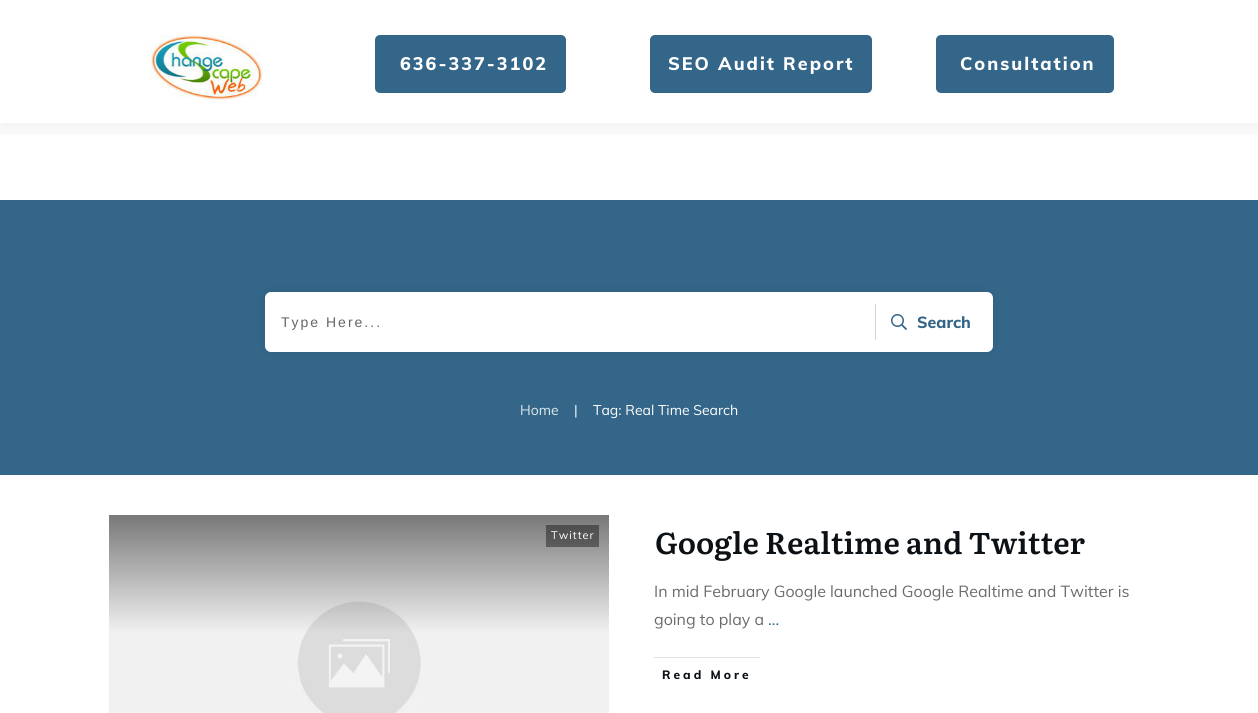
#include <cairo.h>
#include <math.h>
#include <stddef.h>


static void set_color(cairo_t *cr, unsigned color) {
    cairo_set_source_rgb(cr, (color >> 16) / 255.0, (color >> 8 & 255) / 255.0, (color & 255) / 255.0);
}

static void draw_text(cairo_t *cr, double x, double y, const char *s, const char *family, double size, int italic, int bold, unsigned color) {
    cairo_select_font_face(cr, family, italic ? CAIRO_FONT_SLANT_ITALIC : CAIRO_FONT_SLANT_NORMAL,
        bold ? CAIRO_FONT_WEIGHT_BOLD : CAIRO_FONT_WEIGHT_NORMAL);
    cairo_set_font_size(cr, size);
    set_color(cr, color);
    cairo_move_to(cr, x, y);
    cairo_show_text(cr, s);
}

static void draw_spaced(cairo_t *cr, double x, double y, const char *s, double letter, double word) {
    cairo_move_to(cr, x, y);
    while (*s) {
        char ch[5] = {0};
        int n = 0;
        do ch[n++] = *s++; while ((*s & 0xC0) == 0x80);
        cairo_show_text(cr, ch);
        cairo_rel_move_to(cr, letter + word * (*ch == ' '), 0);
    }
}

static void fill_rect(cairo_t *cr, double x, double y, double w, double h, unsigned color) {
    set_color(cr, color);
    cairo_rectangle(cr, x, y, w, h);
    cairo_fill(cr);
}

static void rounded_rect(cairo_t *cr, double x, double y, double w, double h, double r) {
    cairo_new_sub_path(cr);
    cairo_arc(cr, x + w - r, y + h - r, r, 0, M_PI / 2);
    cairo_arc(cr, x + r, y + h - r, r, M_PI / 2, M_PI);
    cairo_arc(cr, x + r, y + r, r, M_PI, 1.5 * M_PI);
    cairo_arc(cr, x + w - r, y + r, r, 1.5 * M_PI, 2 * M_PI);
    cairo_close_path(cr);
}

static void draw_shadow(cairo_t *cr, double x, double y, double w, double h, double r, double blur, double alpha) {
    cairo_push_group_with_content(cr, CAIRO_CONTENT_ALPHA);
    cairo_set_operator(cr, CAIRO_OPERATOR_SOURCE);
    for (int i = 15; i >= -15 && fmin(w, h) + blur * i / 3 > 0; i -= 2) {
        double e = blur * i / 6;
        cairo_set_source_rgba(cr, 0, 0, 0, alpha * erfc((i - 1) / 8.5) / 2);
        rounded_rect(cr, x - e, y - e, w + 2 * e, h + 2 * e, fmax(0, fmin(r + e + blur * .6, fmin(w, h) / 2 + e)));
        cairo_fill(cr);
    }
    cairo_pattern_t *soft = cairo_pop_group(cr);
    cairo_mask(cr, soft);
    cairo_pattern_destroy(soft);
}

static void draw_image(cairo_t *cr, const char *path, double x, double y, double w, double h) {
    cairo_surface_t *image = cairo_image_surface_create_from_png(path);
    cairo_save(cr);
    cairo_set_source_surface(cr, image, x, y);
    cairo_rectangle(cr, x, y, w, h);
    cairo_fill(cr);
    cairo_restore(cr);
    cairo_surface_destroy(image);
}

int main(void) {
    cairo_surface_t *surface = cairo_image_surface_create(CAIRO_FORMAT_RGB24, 1258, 713);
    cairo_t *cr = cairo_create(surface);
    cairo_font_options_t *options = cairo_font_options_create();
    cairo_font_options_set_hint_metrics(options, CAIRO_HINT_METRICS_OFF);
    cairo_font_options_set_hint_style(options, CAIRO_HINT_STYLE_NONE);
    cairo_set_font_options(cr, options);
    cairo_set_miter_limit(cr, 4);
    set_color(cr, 0xFFFFFF);
    cairo_paint(cr);
    cairo_save(cr);
    cairo_rectangle(cr, 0, 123, 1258, 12);
    cairo_clip(cr);
    set_color(cr, 0x000000);
    draw_shadow(cr, 0, 2, 1258, 123, 0, 15, 0.08);
    cairo_restore(cr);
    draw_image(cr, "assets/img1.png", 150, 35, 113, 65);
    set_color(cr, 0x346689);
    rounded_rect(cr, 375, 35, 191, 58, 5);
    cairo_fill(cr);
    cairo_select_font_face(cr, "Muli ExtraBold", CAIRO_FONT_SLANT_NORMAL, CAIRO_FONT_WEIGHT_NORMAL);
    cairo_set_font_size(cr, 18);
    set_color(cr, 0xFFFFFF);
    draw_spaced(cr, 400, 70, "636-337-3102", 2, 0);
    set_color(cr, 0x346689);
    rounded_rect(cr, 650, 35, 222, 58, 5);
    cairo_fill(cr);
    set_color(cr, 0xFFFFFF);
    draw_spaced(cr, 668, 70, "SEO Audit Report", 2, 0);
    set_color(cr, 0x346689);
    rounded_rect(cr, 936, 35, 178, 58, 5);
    cairo_fill(cr);
    set_color(cr, 0xFFFFFF);
    draw_spaced(cr, 960, 70, "Consultation", 2, 0);
    fill_rect(cr, 0, 200, 1258, 275, 0x346689);
    set_color(cr, 0x000000);
    draw_shadow(cr, 265, 292, 728, 60, 6, 5.5, 0.08);
    set_color(cr, 0xFFFFFF);
    rounded_rect(cr, 265, 292, 728, 60, 6);
    cairo_fill(cr);
    cairo_select_font_face(cr, "Liberation Sans", CAIRO_FONT_SLANT_NORMAL, CAIRO_FONT_WEIGHT_NORMAL);
    cairo_set_font_size(cr, 14);
    set_color(cr, 0x666666);
    draw_spaced(cr, 281, 327, "Type Here...", 2, 0);
    fill_rect(cr, 875, 304, 1, 36, 0xD6D6D6);
    draw_image(cr, "assets/img2.png", 891, 314, 16, 16);
    draw_text(cr, 917, 328, "Search", "Muli ExtraBold", 16, 0, 0, 0x346689);
    draw_text(cr, 520, 415, "Home", "Muli", 14, 0, 0, 0xE1E8ED);
    draw_text(cr, 574, 415, "|", "Muli", 14, 0, 0, 0xFFFFFF);
    draw_text(cr, 593, 415, "Tag: Real Time Search", "Muli", 14, 0, 0, 0xFFFFFF);
    draw_image(cr, "assets/img3.png", 109, 515, 500, 198);
    cairo_set_source_rgba(cr, 0, 0, 0, 0.4);
    cairo_rectangle(cr, 546, 525, 53, 22);
    cairo_fill(cr);
    cairo_set_font_size(cr, 11);
    set_color(cr, 0xFFFFFF);
    draw_spaced(cr, 551, 539, "Twitter", 1, 0);
    draw_text(cr, 655, 554, "Google Realtime and Twitter", "Literata SemiBold", 30, 0, 0, 0x0C1115);
    draw_text(cr, 654, 597, "In mid February Google launched Google Realtime and Twitter is", "Muli", 16, 0, 0, 0x6A6B6C);
    draw_text(cr, 654, 625, "going to play a", "Muli", 16, 0, 0, 0x6A6B6C);
    draw_text(cr, 768, 625, "...", "Muli", 16, 0, 0, 0x346689);
    fill_rect(cr, 654, 657, 106, 1, 0xE0E0E0);
    cairo_select_font_face(cr, "Muli ExtraBold", CAIRO_FONT_SLANT_NORMAL, CAIRO_FONT_WEIGHT_NORMAL);
    cairo_set_font_size(cr, 12);
    set_color(cr, 0x0C1115);
    draw_spaced(cr, 662, 679, "Read More", 3, 0);
    cairo_surface_write_to_png(surface, "output.png");
    cairo_font_options_destroy(options);
    cairo_destroy(cr);
    cairo_surface_destroy(surface);
    return 0;
}
